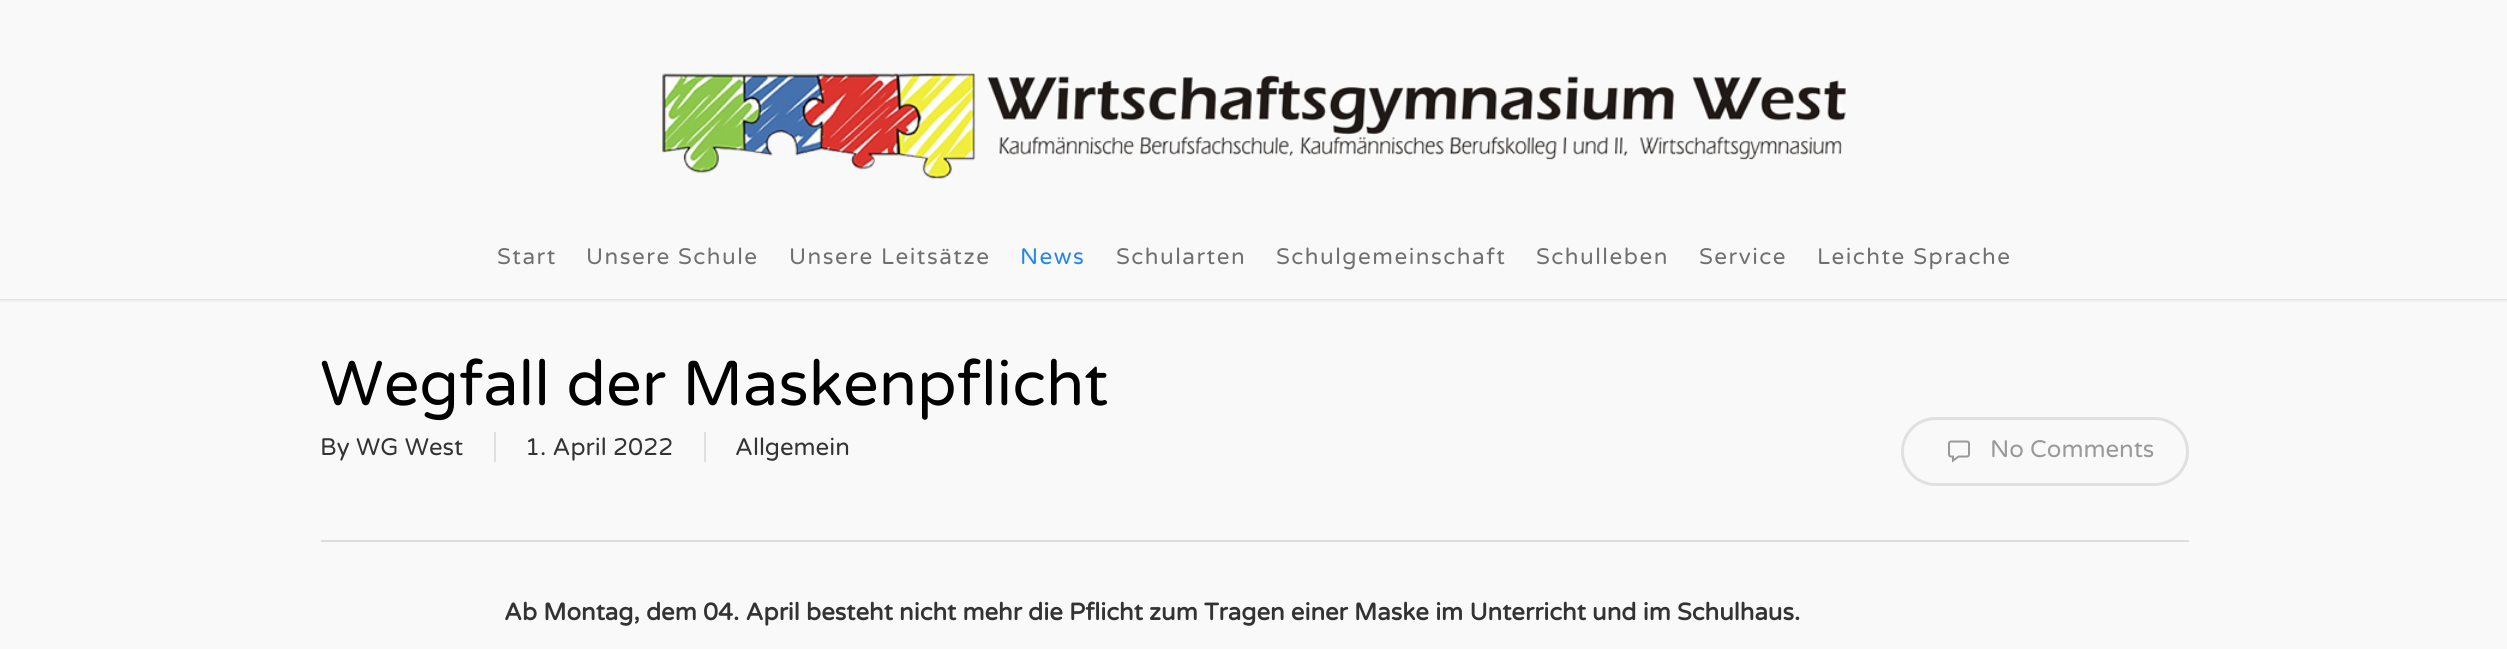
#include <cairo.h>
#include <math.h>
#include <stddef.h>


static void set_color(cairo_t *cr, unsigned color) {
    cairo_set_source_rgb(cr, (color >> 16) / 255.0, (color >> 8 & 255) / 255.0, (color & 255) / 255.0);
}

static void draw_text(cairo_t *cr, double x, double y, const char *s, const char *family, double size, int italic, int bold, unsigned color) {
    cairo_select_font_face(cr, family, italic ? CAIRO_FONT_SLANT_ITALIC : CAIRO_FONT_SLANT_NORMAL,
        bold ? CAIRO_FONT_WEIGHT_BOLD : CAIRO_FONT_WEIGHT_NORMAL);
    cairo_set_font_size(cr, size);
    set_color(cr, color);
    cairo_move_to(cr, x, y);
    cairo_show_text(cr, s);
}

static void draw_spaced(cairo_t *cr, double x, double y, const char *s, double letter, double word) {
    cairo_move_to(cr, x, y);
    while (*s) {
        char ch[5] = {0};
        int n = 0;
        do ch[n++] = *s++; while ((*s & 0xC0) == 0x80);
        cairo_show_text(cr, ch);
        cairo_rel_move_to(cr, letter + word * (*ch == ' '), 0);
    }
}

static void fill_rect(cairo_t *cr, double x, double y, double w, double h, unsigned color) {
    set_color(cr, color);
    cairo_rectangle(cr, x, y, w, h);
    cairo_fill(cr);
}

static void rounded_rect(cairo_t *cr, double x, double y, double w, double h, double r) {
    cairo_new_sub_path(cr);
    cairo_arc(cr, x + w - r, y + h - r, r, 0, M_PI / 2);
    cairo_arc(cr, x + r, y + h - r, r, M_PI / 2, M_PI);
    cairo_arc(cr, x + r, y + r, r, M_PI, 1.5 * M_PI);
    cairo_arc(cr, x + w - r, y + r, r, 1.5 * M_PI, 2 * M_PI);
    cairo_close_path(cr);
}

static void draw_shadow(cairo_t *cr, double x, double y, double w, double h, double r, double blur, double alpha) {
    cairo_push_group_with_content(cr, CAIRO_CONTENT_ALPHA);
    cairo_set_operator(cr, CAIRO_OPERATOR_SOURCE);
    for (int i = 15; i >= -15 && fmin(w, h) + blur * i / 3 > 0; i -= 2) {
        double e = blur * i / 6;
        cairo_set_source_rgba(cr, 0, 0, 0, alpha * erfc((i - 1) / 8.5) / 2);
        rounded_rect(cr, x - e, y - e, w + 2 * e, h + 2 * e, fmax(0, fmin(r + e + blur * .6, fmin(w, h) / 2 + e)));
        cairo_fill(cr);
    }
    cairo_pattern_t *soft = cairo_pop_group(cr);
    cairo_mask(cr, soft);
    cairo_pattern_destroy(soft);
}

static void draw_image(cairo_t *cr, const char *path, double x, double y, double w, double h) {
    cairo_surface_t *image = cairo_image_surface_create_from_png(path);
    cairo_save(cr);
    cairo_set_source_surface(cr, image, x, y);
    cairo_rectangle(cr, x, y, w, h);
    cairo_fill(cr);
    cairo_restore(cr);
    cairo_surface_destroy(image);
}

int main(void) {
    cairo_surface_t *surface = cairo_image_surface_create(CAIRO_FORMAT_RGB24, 2507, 649);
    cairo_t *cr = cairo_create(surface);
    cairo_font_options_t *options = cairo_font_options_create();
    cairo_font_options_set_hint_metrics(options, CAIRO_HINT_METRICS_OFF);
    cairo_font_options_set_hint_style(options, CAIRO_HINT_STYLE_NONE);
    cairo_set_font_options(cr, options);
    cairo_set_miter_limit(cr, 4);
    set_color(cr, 0xF9F9F9);
    cairo_paint(cr);
    set_color(cr, 0x000000);
    draw_shadow(cr, 0, 0, 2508, 299, 0, 2, 0.22);
    fill_rect(cr, 0, 0, 2507, 299, 0xF9F9F9);
    draw_image(cr, "assets/img1.png", 662, 73, 1184, 106);
    cairo_select_font_face(cr, "Varela Round", CAIRO_FONT_SLANT_NORMAL, CAIRO_FONT_WEIGHT_NORMAL);
    cairo_set_font_size(cr, 22.5);
    set_color(cr, 0x707070);
    draw_spaced(cr, 497, 264, "Start", 1.5, 0);
    draw_spaced(cr, 586, 264, "Unsere Schule", 1.5, 0);
    draw_spaced(cr, 789, 264, "Unsere Leitsätze", 1.5, 0);
    set_color(cr, 0x2786E9);
    draw_spaced(cr, 1020, 264, "News", 1.5, 0);
    set_color(cr, 0x707070);
    draw_spaced(cr, 1116, 264, "Schularten", 1.5, 0);
    draw_spaced(cr, 1276, 264, "Schulgemeinschaft", 1.5, 0);
    draw_spaced(cr, 1536, 264, "Schulleben", 1.5, 0);
    draw_spaced(cr, 1699, 264, "Service", 1.5, 0);
    draw_spaced(cr, 1817, 264, "Leichte Sprache", 1.5, 0);
    fill_rect(cr, 321, 540, 1868, 2, 0xDDDDDD);
    draw_text(cr, 320, 405, "Wegfall der Maskenpflicht", "Varela Round", 63, 0, 0, 0x000000);
    draw_text(cr, 320, 455, "By", "Varela Round", 24, 0, 0, 0x333333);
    draw_text(cr, 356, 455, "WG West", "Varela Round", 24, 0, 0, 0x333333);
    draw_text(cr, 525, 455, "1. April 2022", "Varela Round", 24, 0, 0, 0x333333);
    fill_rect(cr, 494, 432, 2, 30, 0xE0E0E0);
    draw_text(cr, 735, 455, "Allgemein", "Varela Round", 24, 0, 0, 0x333333);
    fill_rect(cr, 704, 432, 2, 30, 0xE0E0E0);
    rounded_rect(cr, 1902.5, 418.5, 285, 66, 33);
    cairo_set_line_width(cr, 3);
    cairo_stroke(cr);
    draw_image(cr, "assets/img2.png", 1948, 440, 22, 23);
    draw_text(cr, 1990, 457, "No Comments", "Varela Round", 24, 0, 0, 0x999999);
    draw_text(cr, 504, 620, "Ab Montag, dem 04. April besteht nicht mehr die Pflicht zum Tragen einer Maske im Unterricht und im Schulhaus.", "Varela Round", 24, 0, 1, 0x333333);
    cairo_surface_write_to_png(surface, "output.png");
    cairo_font_options_destroy(options);
    cairo_destroy(cr);
    cairo_surface_destroy(surface);
    return 0;
}
